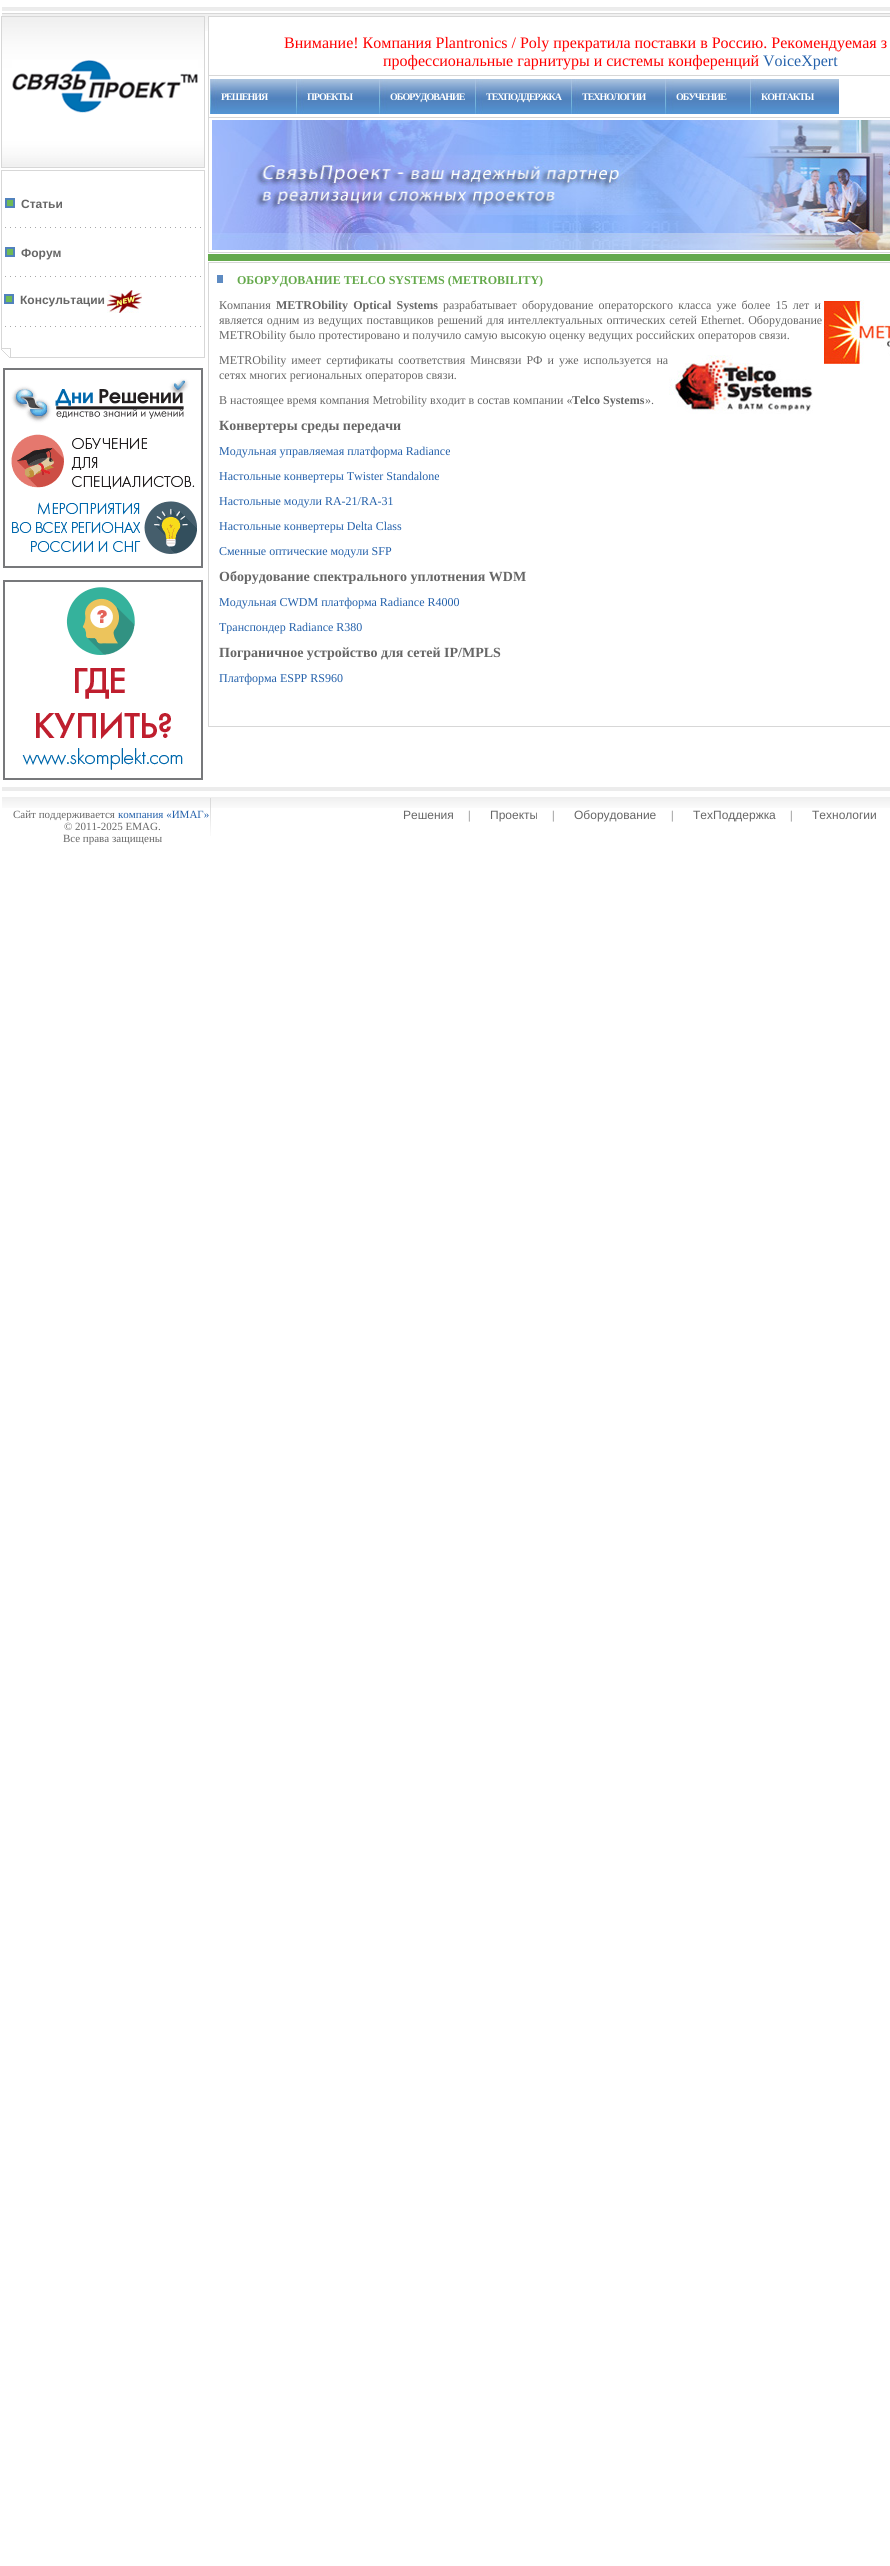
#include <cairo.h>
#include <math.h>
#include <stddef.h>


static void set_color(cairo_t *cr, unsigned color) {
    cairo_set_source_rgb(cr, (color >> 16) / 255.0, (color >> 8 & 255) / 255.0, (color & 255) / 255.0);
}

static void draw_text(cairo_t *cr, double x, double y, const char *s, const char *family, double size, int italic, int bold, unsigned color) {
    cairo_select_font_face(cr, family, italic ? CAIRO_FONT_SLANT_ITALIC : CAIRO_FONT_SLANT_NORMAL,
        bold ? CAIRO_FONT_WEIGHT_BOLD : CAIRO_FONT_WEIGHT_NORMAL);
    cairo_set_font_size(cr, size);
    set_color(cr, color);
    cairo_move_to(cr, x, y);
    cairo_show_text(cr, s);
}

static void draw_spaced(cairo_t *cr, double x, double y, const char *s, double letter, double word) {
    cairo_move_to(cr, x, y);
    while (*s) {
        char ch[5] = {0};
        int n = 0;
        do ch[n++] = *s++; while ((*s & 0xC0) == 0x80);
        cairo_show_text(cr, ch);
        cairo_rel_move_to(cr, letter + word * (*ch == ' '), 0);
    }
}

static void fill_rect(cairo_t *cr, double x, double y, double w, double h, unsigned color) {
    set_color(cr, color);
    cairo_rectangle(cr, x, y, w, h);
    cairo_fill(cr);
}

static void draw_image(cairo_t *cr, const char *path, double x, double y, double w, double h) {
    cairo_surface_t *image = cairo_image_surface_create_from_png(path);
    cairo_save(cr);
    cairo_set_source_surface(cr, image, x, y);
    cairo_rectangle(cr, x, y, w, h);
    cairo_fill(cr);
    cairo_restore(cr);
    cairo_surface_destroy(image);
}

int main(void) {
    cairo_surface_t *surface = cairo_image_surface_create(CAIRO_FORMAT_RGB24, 890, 2566);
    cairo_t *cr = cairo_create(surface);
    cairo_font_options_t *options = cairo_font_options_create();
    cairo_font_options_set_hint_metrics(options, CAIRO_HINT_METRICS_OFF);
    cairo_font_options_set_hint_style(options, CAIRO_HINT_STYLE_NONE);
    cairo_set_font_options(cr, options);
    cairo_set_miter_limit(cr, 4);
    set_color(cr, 0xFFFFFF);
    cairo_paint(cr);
    draw_image(cr, "assets/img1.png", 2, 7, 888, 24);
    draw_image(cr, "assets/img2.png", 2, 17, 202, 150);
    cairo_rectangle(cr, 1.5, 16.5, 203, 151);
    set_color(cr, 0xD7D7D7);
    cairo_set_line_width(cr, 1);
    cairo_stroke(cr);
    draw_image(cr, "assets/img3.png", 12, 60, 186, 53);
    cairo_rectangle(cr, 1.5, 170.5, 203, 187);
    cairo_stroke(cr);
    draw_image(cr, "assets/img4.png", 5, 198, 10, 10);
    draw_text(cr, 21, 208, "Статьи", "Liberation Sans", 12, 0, 1, 0x666666);
    draw_image(cr, "assets/img5.png", 5, 227, 196, 1);
    draw_image(cr, "assets/img4.png", 5, 247, 10, 10);
    draw_text(cr, 21, 257, "Форум", "Liberation Sans", 12, 0, 1, 0x666666);
    draw_image(cr, "assets/img5.png", 5, 276, 196, 1);
    draw_image(cr, "assets/img4.png", 4, 294, 10, 10);
    draw_text(cr, 20, 304, "Консультации", "Liberation Sans", 12, 0, 1, 0x666666);
    draw_image(cr, "assets/img6.png", 107, 290, 35, 23);
    draw_image(cr, "assets/img5.png", 5, 326, 196, 1);
    draw_image(cr, "assets/img7.png", 1, 348, 10, 10);
    draw_image(cr, "assets/img8.png", 3, 368, 200, 200);
    draw_image(cr, "assets/img9.png", 3, 580, 200, 200);
    fill_rect(cr, 208, 16, 682, 237, 0xD7D7D7);
    fill_rect(cr, 209, 17, 681, 58, 0xFFFFFF);
    draw_text(cr, 284, 48, "Внимание! Компания Plantronics / Poly прекратила поставки в Россию. Рекомендуемая з", "Liberation Serif", 16, 0, 0, 0xFF0000);
    draw_text(cr, 383, 66, "профессиональные гарнитуры и системы конференций", "Liberation Serif", 16, 0, 0, 0xFF0000);
    draw_text(cr, 763, 66, "VoiceXpert", "Liberation Serif", 16, 0, 0, 0x2461AB);
    fill_rect(cr, 209, 76, 681, 41, 0xFFFFFF);
    draw_image(cr, "assets/img10.png", 210, 79, 86, 35);
    draw_image(cr, "assets/img11.png", 296, 79, 83, 35);
    draw_image(cr, "assets/img12.png", 379, 79, 96, 35);
    draw_image(cr, "assets/img13.png", 475, 79, 96, 35);
    draw_image(cr, "assets/img14.png", 571, 79, 94, 35);
    draw_image(cr, "assets/img15.png", 665, 79, 85, 35);
    draw_image(cr, "assets/img16.png", 750, 79, 89, 35);
    cairo_select_font_face(cr, "Liberation Serif", CAIRO_FONT_SLANT_NORMAL, CAIRO_FONT_WEIGHT_BOLD);
    cairo_set_font_size(cr, 10);
    draw_spaced(cr, 221, 100, "РЕШЕНИЯ", -1, 0);
    draw_spaced(cr, 307, 100, "ПРОЕКТЫ", -1, 0);
    draw_spaced(cr, 390, 100, "ОБОРУДОВАНИЕ", -1, 0);
    draw_spaced(cr, 486, 100, "ТЕХПОДДЕРЖКА", -1, 0);
    draw_spaced(cr, 582, 100, "ТЕХНОЛОГИИ", -1, 0);
    draw_spaced(cr, 676, 100, "ОБУЧЕНИЕ", -1, 0);
    draw_spaced(cr, 761, 100, "КОНТАКТЫ", -1, 0);
    fill_rect(cr, 209, 118, 681, 134, 0xFFFFFF);
    draw_image(cr, "assets/img17.png", 212, 120, 678, 130);
    fill_rect(cr, 208, 254, 682, 7, 0x64A94C);
    cairo_rectangle(cr, 208.5, 262.5, 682, 464);
    set_color(cr, 0xD7D7D7);
    cairo_stroke(cr);
    draw_image(cr, "assets/img18.png", 217, 275, 6, 8);
    draw_text(cr, 237, 284, "ОБОРУДОВАНИЕ TELCO SYSTEMS (METROBILITY)", "Liberation Serif", 12, 0, 1, 0x64A94B);
    draw_text(cr, 219, 309, "Компания", "Liberation Serif", 12, 0, 0, 0x666666);
    cairo_select_font_face(cr, "Liberation Serif", CAIRO_FONT_SLANT_NORMAL, CAIRO_FONT_WEIGHT_BOLD);
    draw_spaced(cr, 276, 309, "METRObility Optical Systems", 0, 2.25);
    cairo_select_font_face(cr, "Liberation Serif", CAIRO_FONT_SLANT_NORMAL, CAIRO_FONT_WEIGHT_NORMAL);
    draw_spaced(cr, 443, 309, "разрабатывает оборудование операторского класса уже более 15 лет и", 0, 2.25);
    draw_image(cr, "assets/img19.png", 824, 300, 66, 64);
    draw_spaced(cr, 219, 324, "является одним из ведущих поставщиков решений для интеллектуальных оптических сетей Ethernet. Оборудование", 0, 0.75);
    draw_text(cr, 219, 339, "METRObility было протестировано и получило самую высокую оценку ведущих российских операторов связи.", "Liberation Serif", 12, 0, 0, 0x666666);
    draw_spaced(cr, 219, 364, "METRObility имеет сертификаты соответствия Минсвязи РФ и уже используется на", 0, 2);
    draw_image(cr, "assets/img20.png", 669, 355, 144, 59);
    draw_text(cr, 219, 379, "сетях многих региональных операторов связи.", "Liberation Serif", 12, 0, 0, 0x666666);
    draw_text(cr, 219, 404, "В настоящее время компания Metrobility входит в состав компании «", "Liberation Serif", 12, 0, 0, 0x666666);
    draw_text(cr, 572, 404, "Telco Systems", "Liberation Serif", 12, 0, 1, 0x666666);
    draw_text(cr, 645, 404, "».", "Liberation Serif", 12, 0, 0, 0x666666);
    draw_text(cr, 219, 430, "Конвертеры среды передачи", "Liberation Serif", 14, 0, 1, 0x666666);
    draw_text(cr, 219, 455, "Модульная управляемая платформа Radiance", "Liberation Serif", 12, 0, 0, 0x2461AB);
    draw_text(cr, 219, 480, "Настольные конвертеры Twister Standalone", "Liberation Serif", 12, 0, 0, 0x2461AB);
    draw_text(cr, 219, 505, "Настольные модули RA-21/RA-31", "Liberation Serif", 12, 0, 0, 0x2461AB);
    draw_text(cr, 219, 530, "Настольные конвертеры Delta Class", "Liberation Serif", 12, 0, 0, 0x2461AB);
    draw_text(cr, 219, 555, "Сменные оптические модули SFP", "Liberation Serif", 12, 0, 0, 0x2461AB);
    draw_text(cr, 219, 581, "Оборудование спектрального уплотнения WDM", "Liberation Serif", 14, 0, 1, 0x666666);
    draw_text(cr, 219, 606, "Модульная CWDM платформа Radiance R4000", "Liberation Serif", 12, 0, 0, 0x2461AB);
    draw_text(cr, 219, 631, "Транспондер Radiance R380", "Liberation Serif", 12, 0, 0, 0x2461AB);
    draw_text(cr, 219, 657, "Пограничное устройство для сетей IP/MPLS", "Liberation Serif", 14, 0, 1, 0x666666);
    draw_text(cr, 219, 682, "Платформа ESPP RS960", "Liberation Serif", 12, 0, 0, 0x2461AB);
    fill_rect(cr, 2, 787, 888, 4, 0xECECEC);
    draw_image(cr, "assets/img21.png", 2, 797, 888, 11);
    draw_text(cr, 13, 818, "Сайт поддерживается", "Liberation Serif", 11, 0, 0, 0x666666);
    draw_text(cr, 118, 818, "компания «ИМАГ»", "Liberation Serif", 11, 0, 0, 0x2461AB);
    draw_text(cr, 64, 830, "© 2011-2025 EMAG.", "Liberation Serif", 11, 0, 0, 0x666666);
    draw_text(cr, 63, 842, "Все пpава защищены", "Liberation Serif", 11, 0, 0, 0x666666);
    draw_image(cr, "assets/img22.png", 210, 798, 1, 38);
    draw_text(cr, 403, 819, "Решения", "Liberation Sans", 12, 0, 0, 0x666666);
    draw_text(cr, 468, 819, "|", "Liberation Serif", 12, 0, 0, 0x666666);
    draw_text(cr, 490, 819, "Проекты", "Liberation Sans", 12, 0, 0, 0x666666);
    draw_text(cr, 552, 819, "|", "Liberation Serif", 12, 0, 0, 0x666666);
    draw_text(cr, 574, 819, "Оборудование", "Liberation Sans", 12, 0, 0, 0x666666);
    draw_text(cr, 671, 819, "|", "Liberation Serif", 12, 0, 0, 0x666666);
    draw_text(cr, 693, 819, "ТехПоддержка", "Liberation Sans", 12, 0, 0, 0x666666);
    draw_text(cr, 790, 819, "|", "Liberation Serif", 12, 0, 0, 0x666666);
    draw_text(cr, 812, 819, "Технологии", "Liberation Sans", 12, 0, 0, 0x666666);
    cairo_surface_write_to_png(surface, "output.png");
    cairo_font_options_destroy(options);
    cairo_destroy(cr);
    cairo_surface_destroy(surface);
    return 0;
}
